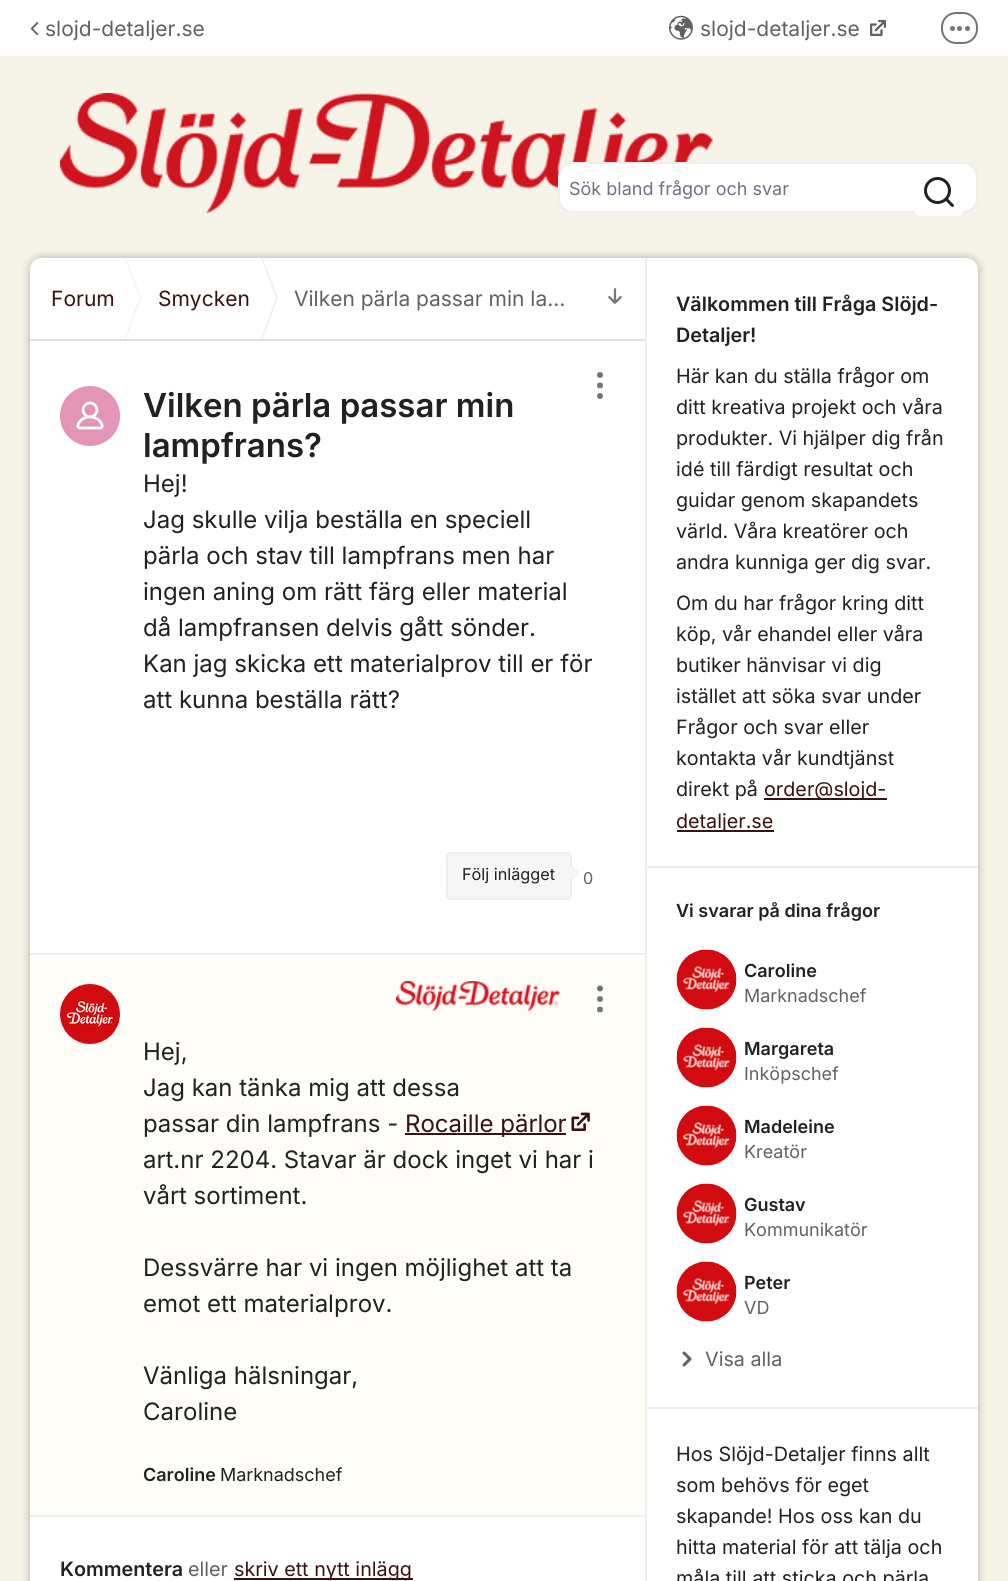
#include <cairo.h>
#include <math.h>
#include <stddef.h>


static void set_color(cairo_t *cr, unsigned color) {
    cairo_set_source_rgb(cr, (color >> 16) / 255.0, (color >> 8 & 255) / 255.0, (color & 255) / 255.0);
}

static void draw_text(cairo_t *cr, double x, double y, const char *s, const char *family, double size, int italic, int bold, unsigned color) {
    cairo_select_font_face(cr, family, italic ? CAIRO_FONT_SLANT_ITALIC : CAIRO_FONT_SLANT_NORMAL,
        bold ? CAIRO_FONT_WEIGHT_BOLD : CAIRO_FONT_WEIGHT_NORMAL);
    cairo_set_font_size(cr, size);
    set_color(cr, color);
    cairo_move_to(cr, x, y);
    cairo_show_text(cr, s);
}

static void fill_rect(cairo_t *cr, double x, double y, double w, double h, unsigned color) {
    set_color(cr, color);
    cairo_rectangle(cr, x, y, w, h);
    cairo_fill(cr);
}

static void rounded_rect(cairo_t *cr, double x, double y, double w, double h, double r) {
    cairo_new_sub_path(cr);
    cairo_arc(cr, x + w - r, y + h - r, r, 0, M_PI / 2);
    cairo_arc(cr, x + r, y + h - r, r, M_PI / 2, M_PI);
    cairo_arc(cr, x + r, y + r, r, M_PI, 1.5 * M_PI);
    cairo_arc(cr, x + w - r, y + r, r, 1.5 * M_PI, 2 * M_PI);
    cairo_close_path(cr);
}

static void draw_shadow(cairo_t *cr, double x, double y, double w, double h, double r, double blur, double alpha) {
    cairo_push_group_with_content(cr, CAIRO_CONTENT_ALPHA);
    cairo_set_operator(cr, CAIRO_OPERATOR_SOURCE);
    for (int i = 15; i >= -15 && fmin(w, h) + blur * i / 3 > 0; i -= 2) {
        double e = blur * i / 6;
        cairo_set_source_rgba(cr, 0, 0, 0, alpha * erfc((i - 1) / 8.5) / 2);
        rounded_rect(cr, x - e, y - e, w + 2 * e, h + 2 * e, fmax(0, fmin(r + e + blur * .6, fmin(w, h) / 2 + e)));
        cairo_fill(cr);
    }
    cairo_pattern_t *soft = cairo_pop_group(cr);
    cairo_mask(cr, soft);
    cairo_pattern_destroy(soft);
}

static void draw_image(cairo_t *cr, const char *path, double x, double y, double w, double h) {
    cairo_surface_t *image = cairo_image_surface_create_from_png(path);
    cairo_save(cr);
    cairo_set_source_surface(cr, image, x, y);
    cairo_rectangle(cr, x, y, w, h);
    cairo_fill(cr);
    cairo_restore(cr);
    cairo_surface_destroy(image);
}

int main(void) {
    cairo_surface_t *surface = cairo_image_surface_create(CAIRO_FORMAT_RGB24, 1008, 1581);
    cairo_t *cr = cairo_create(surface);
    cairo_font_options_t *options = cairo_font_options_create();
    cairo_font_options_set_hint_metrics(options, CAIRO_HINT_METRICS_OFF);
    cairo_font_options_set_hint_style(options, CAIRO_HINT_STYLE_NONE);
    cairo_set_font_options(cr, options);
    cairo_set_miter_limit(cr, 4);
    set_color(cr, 0xF6F3E8);
    cairo_paint(cr);
    fill_rect(cr, 0, 0, 1008, 56, 0xFFFFFF);
    draw_image(cr, "assets/img1.png", 30, 22, 9, 14);
    draw_text(cr, 45, 36, "slojd-detaljer.se", "Inter", 21, 0, 0, 0x616161);
    draw_image(cr, "assets/img2.png", 669, 15, 24, 25);
    draw_text(cr, 700, 36, "slojd-detaljer.se", "Inter", 21, 0, 0, 0x616161);
    draw_image(cr, "assets/img3.png", 870, 19, 17, 17);
    rounded_rect(cr, 942, 13, 35, 30, 14);
    set_color(cr, 0x757575);
    cairo_stroke(cr);
    cairo_arc(cr, 952.5, 28.5, 2.5, 0, 2 * M_PI);
    cairo_fill(cr);
    cairo_arc(cr, 959.5, 28.5, 2.5, 0, 2 * M_PI);
    cairo_fill(cr);
    cairo_arc(cr, 967.5, 28.5, 2.5, 0, 2 * M_PI);
    cairo_fill(cr);
    draw_image(cr, "assets/img4.png", 60, 93, 653, 120);
    set_color(cr, 0xFFFFFF);
    rounded_rect(cr, 559, 163, 418, 49, 14);
    cairo_fill_preserve(cr);
    set_color(cr, 0xEEEEEE);
    cairo_stroke(cr);
    draw_text(cr, 569, 195, "Sök bland frågor och svar", "Inter", 18, 0, 0, 0x6B7280);
    set_color(cr, 0xFFFFFF);
    rounded_rect(cr, 915, 168, 48, 48, 5);
    cairo_fill(cr);
    draw_image(cr, "assets/img5.png", 924, 177, 30, 30);
    set_color(cr, 0x000000);
    draw_shadow(cr, 30, 258, 948, 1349, 12, 4.5, 0.3);
    set_color(cr, 0xFFFFFF);
    cairo_new_path(cr);
    cairo_move_to(cr, 42, 258);
    cairo_line_to(cr, 966, 258);
    cairo_curve_to(cr, 972.5, 258, 978, 263.5, 978, 270);
    cairo_line_to(cr, 978, 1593);
    cairo_line_to(cr, 30, 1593);
    cairo_line_to(cr, 30, 270);
    cairo_curve_to(cr, 30, 263.5, 35.5, 258, 42, 258);
    cairo_close_path(cr);
    cairo_fill(cr);
    rounded_rect(cr, 30, 258, 617, 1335, 12);
    cairo_fill(cr);
    fill_rect(cr, 30, 339, 617, 2, 0xE0E0E0);
    cairo_save(cr);
    cairo_rectangle(cr, 30, 258, 617, 81);
    cairo_clip(cr);
    set_color(cr, 0xEEEEEE);
    cairo_new_path(cr);
    cairo_move_to(cr, 118, 358);
    cairo_line_to(cr, 118, 238);
    cairo_line_to(cr, 141, 298);
    cairo_close_path(cr);
    cairo_fill(cr);
    set_color(cr, 0xFFFFFF);
    cairo_new_path(cr);
    cairo_move_to(cr, 117, 358);
    cairo_line_to(cr, 117, 238);
    cairo_line_to(cr, 140, 298);
    cairo_close_path(cr);
    cairo_fill(cr);
    cairo_restore(cr);
    draw_text(cr, 51, 306, "Forum", "Inter", 21, 0, 0, 0x381111);
    cairo_save(cr);
    cairo_rectangle(cr, 30, 258, 617, 81);
    cairo_clip(cr);
    set_color(cr, 0xEEEEEE);
    cairo_new_path(cr);
    cairo_move_to(cr, 255, 358);
    cairo_line_to(cr, 255, 238);
    cairo_line_to(cr, 278, 298);
    cairo_close_path(cr);
    cairo_fill(cr);
    set_color(cr, 0xFFFFFF);
    cairo_new_path(cr);
    cairo_move_to(cr, 254, 358);
    cairo_line_to(cr, 254, 238);
    cairo_line_to(cr, 276, 298);
    cairo_close_path(cr);
    cairo_fill(cr);
    cairo_restore(cr);
    draw_text(cr, 158, 306, "Smycken", "Inter", 21, 0, 0, 0x381111);
    draw_text(cr, 294, 306, "Vilken pärla passar min la…", "Inter", 21, 0, 0, 0x616161);
    draw_image(cr, "assets/img6.png", 608, 288, 14, 16);
    draw_image(cr, "assets/img7.png", 597, 372, 6, 27);
    draw_text(cr, 143, 417, "Vilken pärla passar min", "Inter SemiBold", 33, 0, 0, 0x212121);
    draw_text(cr, 143, 457, "lampfrans?", "Inter SemiBold", 33, 0, 0, 0x212121);
    draw_text(cr, 143, 492, "Hej!", "Inter", 24, 0, 0, 0x212121);
    draw_text(cr, 143, 528, "Jag skulle vilja beställa en speciell", "Inter", 24, 0, 0, 0x212121);
    draw_text(cr, 143, 564, "pärla och stav till lampfrans men har", "Inter", 24, 0, 0, 0x212121);
    draw_text(cr, 143, 600, "ingen aning om rätt färg eller material", "Inter", 24, 0, 0, 0x212121);
    draw_text(cr, 143, 636, "då lampfransen delvis gått sönder.", "Inter", 24, 0, 0, 0x212121);
    draw_text(cr, 143, 672, "Kan jag skicka ett materialprov till er för", "Inter", 24, 0, 0, 0x212121);
    draw_text(cr, 143, 708, "att kunna beställa rätt?", "Inter", 24, 0, 0, 0x212121);
    set_color(cr, 0xE495B7);
    cairo_new_path(cr);
    cairo_arc(cr, 90, 416, 30, 0, 2 * M_PI);
    cairo_fill(cr);
    draw_image(cr, "assets/img8.png", 76, 401, 28, 29);
    set_color(cr, 0xF6F6F6);
    rounded_rect(cr, 447, 853, 124, 46, 4);
    cairo_fill_preserve(cr);
    set_color(cr, 0xEEEEEE);
    cairo_stroke(cr);
    cairo_new_path(cr);
    cairo_move_to(cr, 570, 882);
    cairo_line_to(cr, 570, 864);
    cairo_line_to(cr, 579, 873);
    cairo_close_path(cr);
    cairo_fill(cr);
    set_color(cr, 0xF6F6F6);
    cairo_new_path(cr);
    cairo_move_to(cr, 568.5, 882);
    cairo_line_to(cr, 568.5, 864);
    cairo_line_to(cr, 577.5, 873);
    cairo_close_path(cr);
    cairo_fill(cr);
    draw_text(cr, 462, 880, "Följ inlägget", "Inter", 16.25, 0, 0, 0x212121);
    draw_text(cr, 583, 884, "0", "Inter", 16.25, 0, 0, 0x616161);
    fill_rect(cr, 30, 955, 615, 560, 0xFFFDF8);
    fill_rect(cr, 30, 953, 617, 2, 0xEEEEEE);
    draw_image(cr, "assets/img9.png", 597, 985, 6, 28);
    draw_image(cr, "assets/img10.png", 396, 981, 164, 30);
    draw_text(cr, 143, 1060, "Hej,", "Inter", 24, 0, 0, 0x212121);
    draw_text(cr, 143, 1096, "Jag kan tänka mig att dessa", "Inter", 24, 0, 0, 0x212121);
    draw_text(cr, 143, 1132, "passar din lampfrans -", "Inter", 24, 0, 0, 0x212121);
    fill_rect(cr, 405, 1133, 161, 2, 0x381111);
    draw_text(cr, 405, 1132, "Rocaille pärlor", "Inter", 24, 0, 0, 0x381111);
    draw_image(cr, "assets/img11.png", 571, 1112, 19, 19);
    draw_text(cr, 143, 1168, "art.nr 2204. Stavar är dock inget vi har i", "Inter", 24, 0, 0, 0x212121);
    draw_text(cr, 143, 1204, "vårt sortiment.", "Inter", 24, 0, 0, 0x212121);
    draw_text(cr, 143, 1276, "Dessvärre har vi ingen möjlighet att ta", "Inter", 24, 0, 0, 0x212121);
    draw_text(cr, 143, 1312, "emot ett materialprov.", "Inter", 24, 0, 0, 0x212121);
    draw_text(cr, 143, 1384, "Vänliga hälsningar,", "Inter", 24, 0, 0, 0x212121);
    draw_text(cr, 143, 1420, "Caroline", "Inter", 24, 0, 0, 0x212121);
    draw_image(cr, "assets/img12.png", 60, 984, 60, 60);
    draw_text(cr, 143, 1481, "Caroline", "Inter SemiBold", 18, 0, 0, 0x212121);
    draw_text(cr, 220, 1481, "Marknadschef", "Inter", 18, 0, 0, 0x212121);
    fill_rect(cr, 30, 1515, 617, 2, 0xEEEEEE);
    draw_text(cr, 60, 1576, "Kommentera", "Inter SemiBold", 19.75, 0, 0, 0x212121);
    draw_text(cr, 188, 1576, "eller", "Inter", 19.75, 0, 0, 0x616161);
    fill_rect(cr, 234, 1578, 179, 2, 0x381111);
    draw_text(cr, 234, 1576, "skriv ett nytt inlägg", "Inter", 19.75, 0, 0, 0x381111);
    fill_rect(cr, 645, 258, 2, 1323, 0xEEEEEE);
    fill_rect(cr, 647, 866, 331, 2, 0xEEEEEE);
    draw_text(cr, 676, 311, "Välkommen till Fråga Slöjd-", "Inter SemiBold", 19.75, 0, 0, 0x212121);
    draw_text(cr, 676, 342, "Detaljer!", "Inter SemiBold", 19.75, 0, 0, 0x212121);
    draw_text(cr, 676, 383, "Här kan du ställa frågor om", "Inter", 19.75, 0, 0, 0x212121);
    draw_text(cr, 676, 414, "ditt kreativa projekt och våra", "Inter", 19.75, 0, 0, 0x212121);
    draw_text(cr, 676, 445, "produkter. Vi hjälper dig från", "Inter", 19.75, 0, 0, 0x212121);
    draw_text(cr, 676, 476, "idé till färdigt resultat och", "Inter", 19.75, 0, 0, 0x212121);
    draw_text(cr, 676, 507, "guidar genom skapandets", "Inter", 19.75, 0, 0, 0x212121);
    draw_text(cr, 676, 538, "värld. Våra kreatörer och", "Inter", 19.75, 0, 0, 0x212121);
    draw_text(cr, 676, 569, "andra kunniga ger dig svar.", "Inter", 19.75, 0, 0, 0x212121);
    draw_text(cr, 676, 610, "Om du har frågor kring ditt", "Inter", 19.75, 0, 0, 0x212121);
    draw_text(cr, 676, 641, "köp, vår ehandel eller våra", "Inter", 19.75, 0, 0, 0x212121);
    draw_text(cr, 676, 672, "butiker hänvisar vi dig", "Inter", 19.75, 0, 0, 0x212121);
    draw_text(cr, 676, 703, "istället att söka svar under", "Inter", 19.75, 0, 0, 0x212121);
    draw_text(cr, 676, 734, "Frågor och svar eller", "Inter", 19.75, 0, 0, 0x212121);
    draw_text(cr, 676, 765, "kontakta vår kundtjänst", "Inter", 19.75, 0, 0, 0x212121);
    draw_text(cr, 676, 796, "direkt på", "Inter", 19.75, 0, 0, 0x212121);
    fill_rect(cr, 764, 798, 123, 2, 0x381111);
    draw_text(cr, 764, 796, "order@slojd-", "Inter", 19.75, 0, 0, 0x381111);
    fill_rect(cr, 677, 830, 97, 2, 0x381111);
    draw_text(cr, 676, 828, "detaljer.se", "Inter", 19.75, 0, 0, 0x381111);
    fill_rect(cr, 647, 1407, 331, 2, 0xEEEEEE);
    draw_text(cr, 676, 917, "Vi svarar på dina frågor", "Inter SemiBold", 18, 0, 0, 0x212121);
    draw_image(cr, "assets/img13.png", 676, 949, 61, 61);
    draw_text(cr, 744, 977, "Caroline", "Inter SemiBold", 18, 0, 0, 0x212121);
    draw_text(cr, 744, 1002, "Marknadschef", "Inter", 18, 0, 0, 0x616161);
    draw_image(cr, "assets/img14.png", 676, 1027, 61, 61);
    draw_text(cr, 744, 1055, "Margareta", "Inter SemiBold", 18, 0, 0, 0x212121);
    draw_text(cr, 744, 1080, "Inköpschef", "Inter", 18, 0, 0, 0x616161);
    draw_image(cr, "assets/img13.png", 676, 1105, 61, 61);
    draw_text(cr, 744, 1133, "Madeleine", "Inter SemiBold", 18, 0, 0, 0x212121);
    draw_text(cr, 744, 1158, "Kreatör", "Inter", 18, 0, 0, 0x616161);
    draw_image(cr, "assets/img13.png", 676, 1183, 61, 61);
    draw_text(cr, 744, 1211, "Gustav", "Inter SemiBold", 18, 0, 0, 0x212121);
    draw_text(cr, 744, 1236, "Kommunikatör", "Inter", 18, 0, 0, 0x616161);
    draw_image(cr, "assets/img15.png", 676, 1261, 61, 61);
    draw_text(cr, 744, 1289, "Peter", "Inter SemiBold", 18, 0, 0, 0x212121);
    draw_text(cr, 744, 1314, "VD", "Inter", 18, 0, 0, 0x616161);
    draw_image(cr, "assets/img16.png", 682, 1351, 10, 16);
    draw_text(cr, 705, 1366, "Visa alla", "Inter", 19.75, 0, 0, 0x616161);
    draw_text(cr, 676, 1461, "Hos Slöjd-Detaljer finns allt", "Inter", 19.75, 0, 0, 0x212121);
    draw_text(cr, 676, 1492, "som behövs för eget", "Inter", 19.75, 0, 0, 0x212121);
    draw_text(cr, 676, 1523, "skapande! Hos oss kan du", "Inter", 19.75, 0, 0, 0x212121);
    draw_text(cr, 676, 1554, "hitta material för att tälja och", "Inter", 19.75, 0, 0, 0x212121);
    draw_text(cr, 676, 1585, "måla till att sticka och pärla", "Inter", 19.75, 0, 0, 0x212121);
    cairo_surface_write_to_png(surface, "output.png");
    cairo_font_options_destroy(options);
    cairo_destroy(cr);
    cairo_surface_destroy(surface);
    return 0;
}
